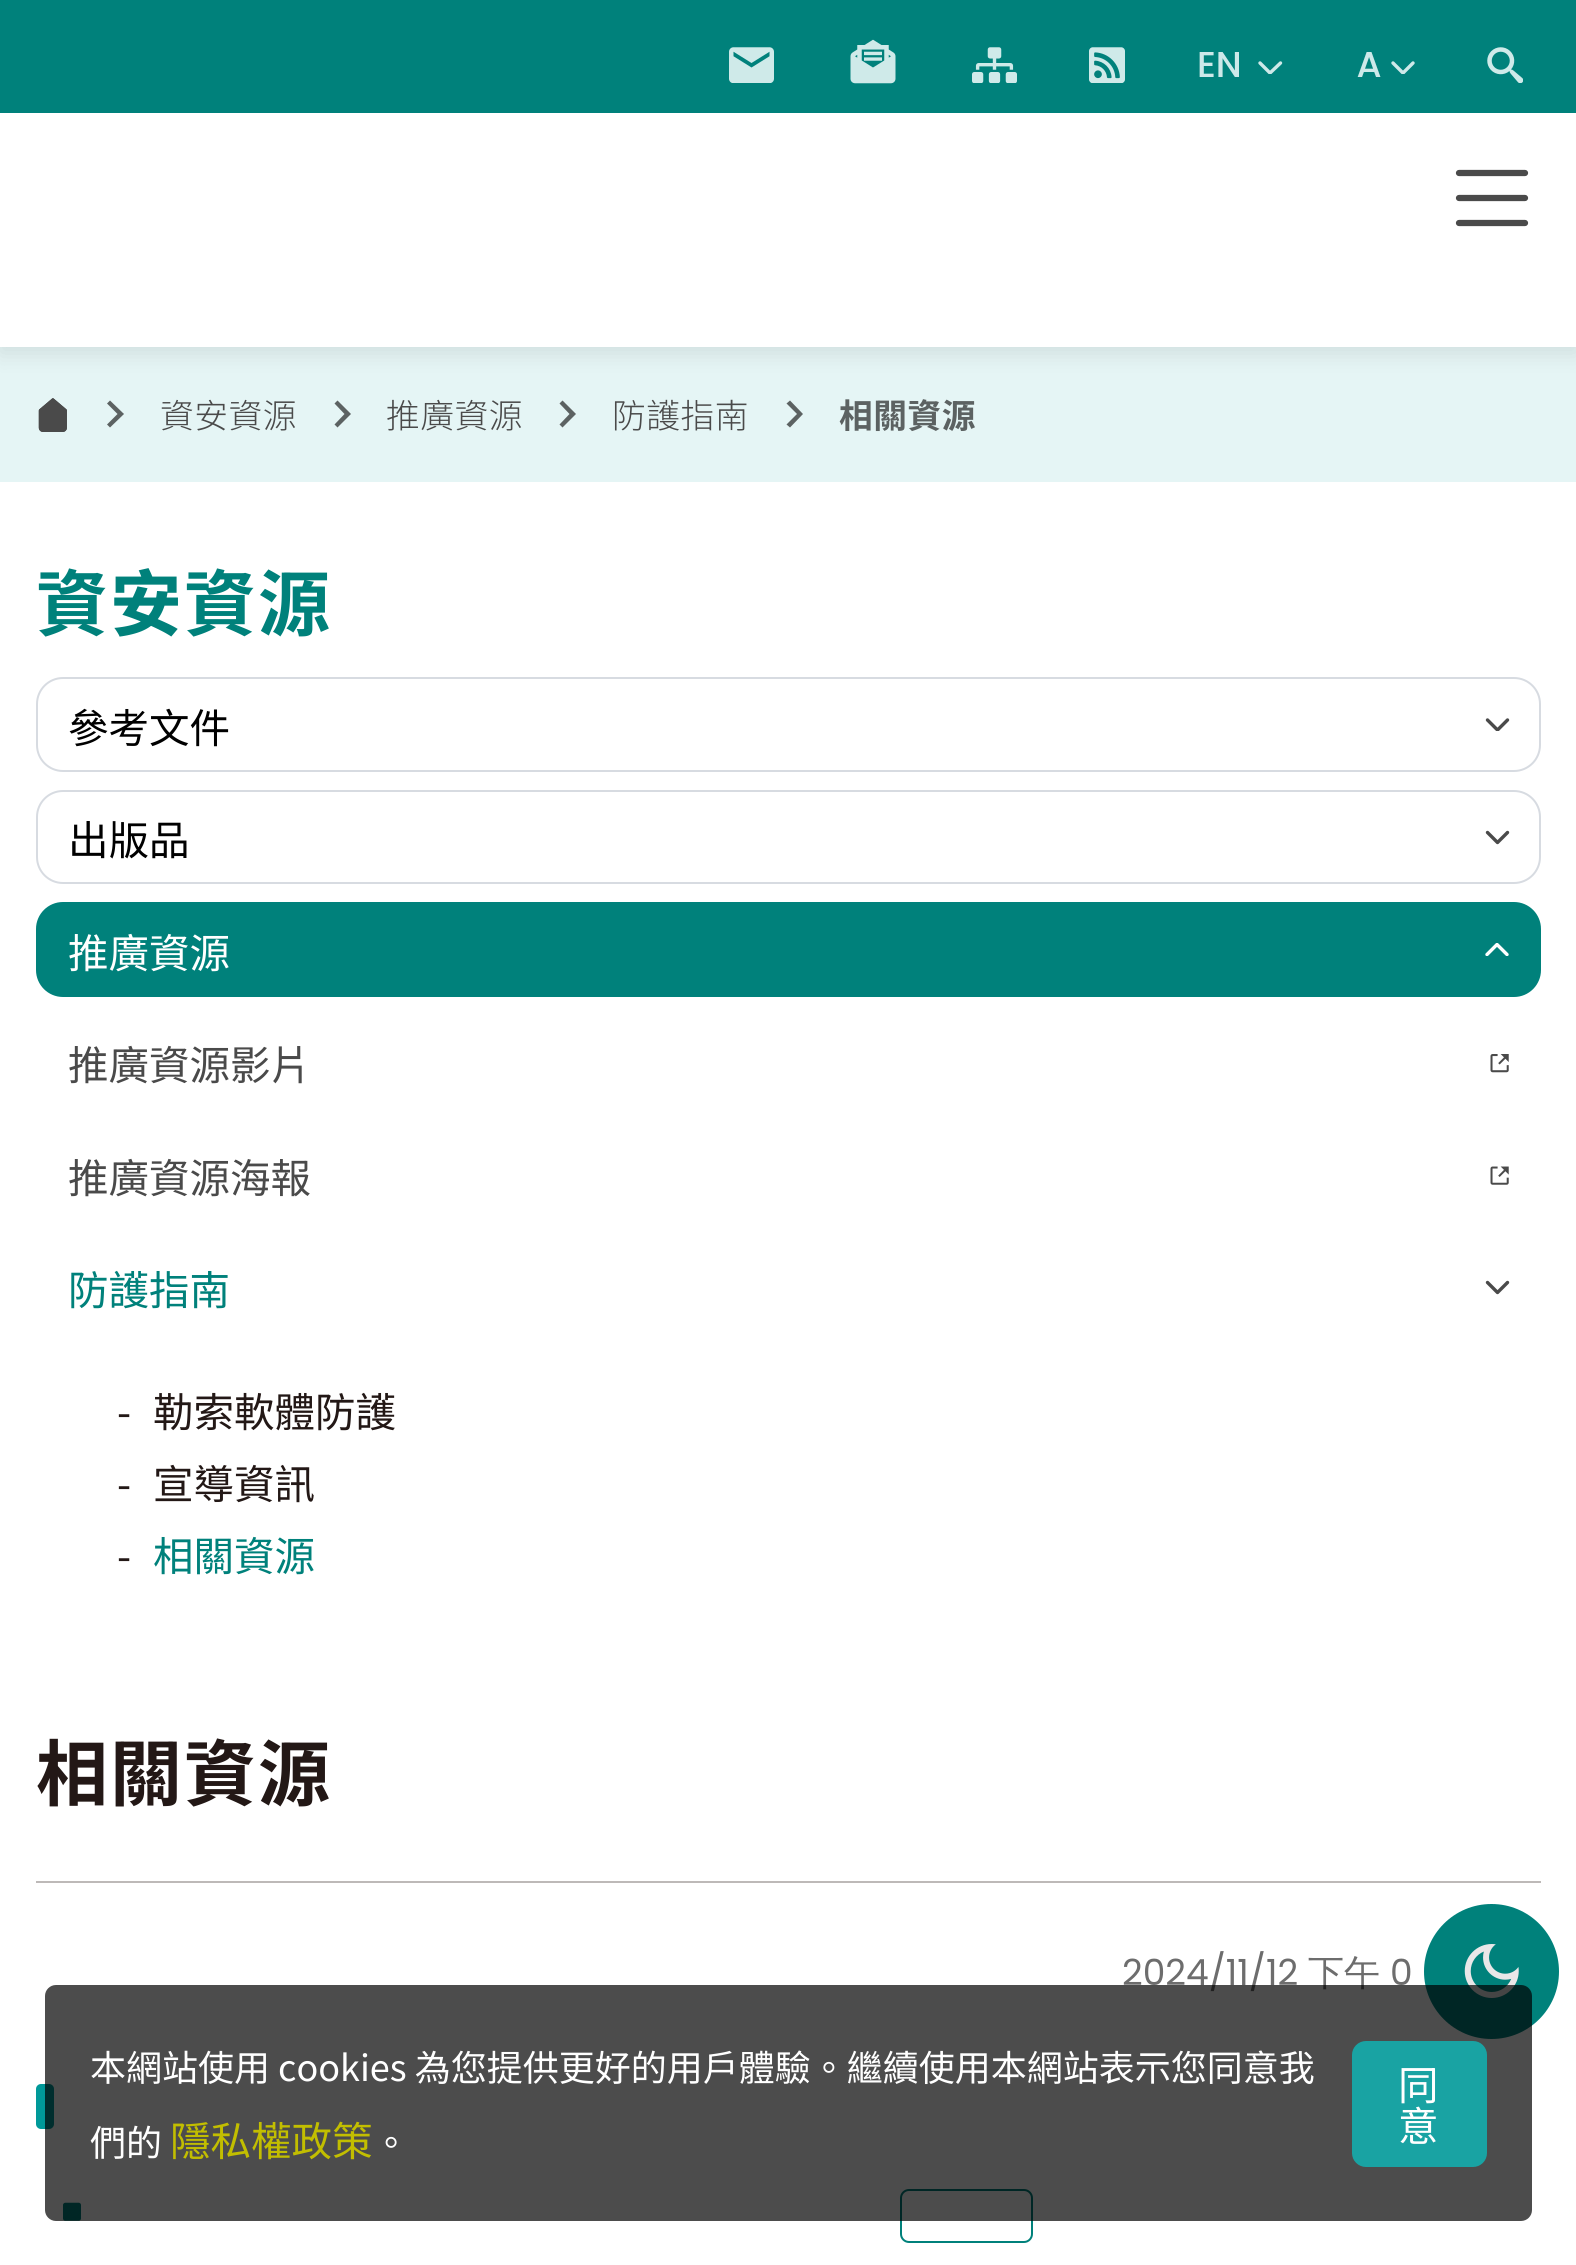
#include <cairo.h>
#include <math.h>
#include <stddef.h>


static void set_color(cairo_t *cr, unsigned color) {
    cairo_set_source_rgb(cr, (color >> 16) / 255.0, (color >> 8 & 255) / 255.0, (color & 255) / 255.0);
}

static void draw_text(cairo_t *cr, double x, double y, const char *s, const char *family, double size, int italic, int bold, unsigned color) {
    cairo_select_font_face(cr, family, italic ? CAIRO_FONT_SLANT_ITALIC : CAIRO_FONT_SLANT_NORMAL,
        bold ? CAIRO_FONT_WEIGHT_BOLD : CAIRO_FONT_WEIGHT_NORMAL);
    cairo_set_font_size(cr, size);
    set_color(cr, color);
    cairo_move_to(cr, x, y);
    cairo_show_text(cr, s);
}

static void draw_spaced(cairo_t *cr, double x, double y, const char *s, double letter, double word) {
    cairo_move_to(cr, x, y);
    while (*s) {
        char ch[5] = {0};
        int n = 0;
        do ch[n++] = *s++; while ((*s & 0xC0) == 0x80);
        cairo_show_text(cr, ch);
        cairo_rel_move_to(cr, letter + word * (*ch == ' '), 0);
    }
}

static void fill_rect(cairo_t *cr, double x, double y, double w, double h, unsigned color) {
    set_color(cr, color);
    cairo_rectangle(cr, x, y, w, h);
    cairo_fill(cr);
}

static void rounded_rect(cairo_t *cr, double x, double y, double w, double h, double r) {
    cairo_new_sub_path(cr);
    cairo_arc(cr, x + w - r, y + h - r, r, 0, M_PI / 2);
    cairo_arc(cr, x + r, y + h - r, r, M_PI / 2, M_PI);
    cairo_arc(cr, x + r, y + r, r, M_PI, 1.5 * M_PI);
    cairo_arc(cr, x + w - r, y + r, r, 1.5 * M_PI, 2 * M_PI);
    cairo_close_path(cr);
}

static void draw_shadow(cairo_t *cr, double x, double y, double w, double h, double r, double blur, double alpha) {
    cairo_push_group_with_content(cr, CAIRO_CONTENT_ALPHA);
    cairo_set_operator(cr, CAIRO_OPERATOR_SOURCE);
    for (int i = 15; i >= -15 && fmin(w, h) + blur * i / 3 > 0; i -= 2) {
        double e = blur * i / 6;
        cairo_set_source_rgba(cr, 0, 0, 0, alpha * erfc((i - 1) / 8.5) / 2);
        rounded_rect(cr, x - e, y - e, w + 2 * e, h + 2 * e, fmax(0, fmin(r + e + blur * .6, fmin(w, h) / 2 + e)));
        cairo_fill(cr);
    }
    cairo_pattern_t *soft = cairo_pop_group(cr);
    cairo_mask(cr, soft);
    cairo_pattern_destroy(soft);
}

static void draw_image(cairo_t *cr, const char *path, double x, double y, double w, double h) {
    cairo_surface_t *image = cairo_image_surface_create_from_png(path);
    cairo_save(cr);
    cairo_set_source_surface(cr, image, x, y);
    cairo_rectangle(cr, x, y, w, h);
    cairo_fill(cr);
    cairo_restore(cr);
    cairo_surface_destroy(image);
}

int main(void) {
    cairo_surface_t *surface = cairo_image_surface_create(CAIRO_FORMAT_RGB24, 1576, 2265);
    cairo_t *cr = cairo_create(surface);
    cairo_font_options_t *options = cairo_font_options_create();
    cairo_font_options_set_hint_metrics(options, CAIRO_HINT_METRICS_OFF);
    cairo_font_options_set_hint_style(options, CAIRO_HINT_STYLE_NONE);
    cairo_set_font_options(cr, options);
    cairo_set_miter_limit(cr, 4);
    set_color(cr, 0xFFFFFF);
    cairo_paint(cr);
    fill_rect(cr, 0, 347, 1576, 135, 0xE5F5F5);
    set_color(cr, 0x000000);
    draw_shadow(cr, 0, 119, 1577, 234, 0, 11, 0.1);
    fill_rect(cr, 0, 0, 1576, 113, 0x00817B);
    draw_image(cr, "assets/img1.png", 729, 47, 45, 36);
    draw_image(cr, "assets/img2.png", 850, 39, 46, 45);
    draw_image(cr, "assets/img3.png", 972, 47, 45, 36);
    draw_image(cr, "assets/img4.png", 1089, 47, 36, 36);
    draw_image(cr, "assets/img5.png", 1199, 52, 40, 25);
    cairo_save(cr);
    cairo_rectangle(cr, 1258, 61, 25, 13);
    cairo_clip(cr);
    cairo_new_path(cr);
    cairo_move_to(cr, 1260, 63);
    cairo_line_to(cr, 1270, 73);
    cairo_line_to(cr, 1280.5, 63);
    set_color(cr, 0xCEE9E9);
    cairo_set_line_width(cr, 3.4);
    cairo_set_line_cap(cr, CAIRO_LINE_CAP_ROUND);
    cairo_set_line_join(cr, CAIRO_LINE_JOIN_ROUND);
    cairo_stroke(cr);
    cairo_restore(cr);
    draw_image(cr, "assets/img6.png", 1357, 52, 24, 25);
    cairo_save(cr);
    cairo_rectangle(cr, 1391, 61, 24, 13);
    cairo_clip(cr);
    cairo_new_path(cr);
    cairo_move_to(cr, 1393, 63);
    cairo_line_to(cr, 1403, 73);
    cairo_line_to(cr, 1413, 63);
    set_color(cr, 0xCEE9E9);
    cairo_set_line_width(cr, 3.4);
    cairo_set_line_cap(cr, CAIRO_LINE_CAP_ROUND);
    cairo_set_line_join(cr, CAIRO_LINE_JOIN_ROUND);
    cairo_stroke(cr);
    cairo_restore(cr);
    draw_image(cr, "assets/img7.png", 1487, 47, 36, 36);
    fill_rect(cr, 0, 113, 1576, 234, 0xFFFFFF);
    cairo_new_path(cr);
    cairo_move_to(cr, 1459, 173);
    cairo_line_to(cr, 1525, 173);
    set_color(cr, 0x4A4A4A);
    cairo_set_line_width(cr, 6.2);
    cairo_set_line_cap(cr, CAIRO_LINE_CAP_ROUND);
    cairo_set_line_join(cr, CAIRO_LINE_JOIN_ROUND);
    cairo_stroke(cr);
    cairo_new_path(cr);
    cairo_move_to(cr, 1459, 198);
    cairo_line_to(cr, 1525, 198);
    cairo_stroke(cr);
    cairo_new_path(cr);
    cairo_move_to(cr, 1459, 223);
    cairo_line_to(cr, 1525, 223);
    cairo_stroke(cr);
    draw_image(cr, "assets/img8.png", 38, 398, 29, 34);
    set_color(cr, 0x5C6262);
    cairo_new_path(cr);
    cairo_move_to(cr, 110, 400.5);
    cairo_line_to(cr, 107, 403.5);
    cairo_line_to(cr, 117.5, 414);
    cairo_line_to(cr, 107, 424.5);
    cairo_line_to(cr, 110, 427.5);
    cairo_line_to(cr, 124, 414);
    cairo_close_path(cr);
    cairo_fill(cr);
    cairo_select_font_face(cr, "Noto Sans TC Light", CAIRO_FONT_SLANT_NORMAL, CAIRO_FONT_WEIGHT_NORMAL);
    cairo_set_font_size(cr, 33.75);
    set_color(cr, 0x4A4A4A);
    draw_spaced(cr, 160, 428, "資安資源", 0.5, 0);
    set_color(cr, 0x5C6262);
    cairo_new_path(cr);
    cairo_move_to(cr, 337.5, 400.5);
    cairo_line_to(cr, 334.5, 403.5);
    cairo_line_to(cr, 344.5, 414);
    cairo_line_to(cr, 334.5, 424.5);
    cairo_line_to(cr, 337.5, 427.5);
    cairo_line_to(cr, 351, 414);
    cairo_close_path(cr);
    cairo_fill(cr);
    set_color(cr, 0x4A4A4A);
    draw_spaced(cr, 386, 428, "推廣資源", 0.5, 0);
    set_color(cr, 0x5C6262);
    cairo_new_path(cr);
    cairo_move_to(cr, 562.5, 400.5);
    cairo_line_to(cr, 559.5, 403.5);
    cairo_line_to(cr, 569.5, 414);
    cairo_line_to(cr, 559.5, 424.5);
    cairo_line_to(cr, 562.5, 427.5);
    cairo_line_to(cr, 576, 414);
    cairo_close_path(cr);
    cairo_fill(cr);
    set_color(cr, 0x4A4A4A);
    draw_spaced(cr, 612, 428, "防護指南", 0.5, 0);
    set_color(cr, 0x5C6262);
    cairo_new_path(cr);
    cairo_move_to(cr, 790, 400.5);
    cairo_line_to(cr, 786.5, 403.5);
    cairo_line_to(cr, 797, 414);
    cairo_line_to(cr, 786.5, 424.5);
    cairo_line_to(cr, 790, 427.5);
    cairo_line_to(cr, 803, 414);
    cairo_close_path(cr);
    cairo_fill(cr);
    cairo_select_font_face(cr, "Noto Sans TC", CAIRO_FONT_SLANT_NORMAL, CAIRO_FONT_WEIGHT_BOLD);
    draw_spaced(cr, 839, 428, "相關資源", 0.5, 0);
    cairo_set_font_size(cr, 72);
    set_color(cr, 0x00817B);
    draw_spaced(cr, 36, 630, "資安資源", 2, 0);
    rounded_rect(cr, 37, 678, 1503, 93, 26);
    set_color(cr, 0xD7DBE1);
    cairo_set_line_width(cr, 2);
    cairo_set_line_cap(cr, CAIRO_LINE_CAP_BUTT);
    cairo_set_line_join(cr, CAIRO_LINE_JOIN_MITER);
    cairo_stroke(cr);
    draw_text(cr, 68, 743, "參考文件", "Noto Sans TC", 40.5, 0, 0, 0x000000);
    cairo_save(cr);
    cairo_rectangle(cr, 1485, 718, 25, 13);
    cairo_clip(cr);
    cairo_new_path(cr);
    cairo_move_to(cr, 1487.5, 720);
    cairo_line_to(cr, 1497.5, 730);
    cairo_line_to(cr, 1507.5, 720);
    set_color(cr, 0x4A4A4A);
    cairo_set_line_width(cr, 3.4);
    cairo_set_line_cap(cr, CAIRO_LINE_CAP_ROUND);
    cairo_set_line_join(cr, CAIRO_LINE_JOIN_ROUND);
    cairo_stroke(cr);
    cairo_restore(cr);
    rounded_rect(cr, 37, 791, 1503, 92, 26);
    set_color(cr, 0xD7DBE1);
    cairo_stroke(cr);
    draw_text(cr, 68, 855, "出版品", "Noto Sans TC", 40.5, 0, 0, 0x000000);
    cairo_new_path(cr);
    cairo_move_to(cr, 1487.5, 832.5);
    cairo_line_to(cr, 1497.5, 842.5);
    cairo_line_to(cr, 1507.5, 832.5);
    set_color(cr, 0x4A4A4A);
    cairo_set_line_width(cr, 3.4);
    cairo_set_line_cap(cr, CAIRO_LINE_CAP_ROUND);
    cairo_set_line_join(cr, CAIRO_LINE_JOIN_ROUND);
    cairo_stroke(cr);
    set_color(cr, 0x00817B);
    rounded_rect(cr, 37, 903, 1503, 93, 26);
    cairo_fill_preserve(cr);
    cairo_set_line_width(cr, 2);
    cairo_set_line_cap(cr, CAIRO_LINE_CAP_BUTT);
    cairo_set_line_join(cr, CAIRO_LINE_JOIN_MITER);
    cairo_stroke(cr);
    draw_text(cr, 68, 968, "推廣資源", "Noto Sans TC", 40.5, 0, 0, 0xFFFFFF);
    cairo_save(cr);
    cairo_rectangle(cr, 1485, 943, 25, 13);
    cairo_clip(cr);
    cairo_new_path(cr);
    cairo_move_to(cr, 1507, 954.5);
    cairo_line_to(cr, 1497, 944.5);
    cairo_line_to(cr, 1487, 954.5);
    cairo_set_line_width(cr, 3.4);
    cairo_set_line_cap(cr, CAIRO_LINE_CAP_ROUND);
    cairo_set_line_join(cr, CAIRO_LINE_JOIN_ROUND);
    cairo_stroke(cr);
    cairo_restore(cr);
    draw_text(cr, 68, 1080, "推廣資源影片", "Noto Sans TC", 40.5, 0, 0, 0x4A4A4A);
    draw_image(cr, "assets/img9.png", 1490, 1054, 19, 19);
    draw_text(cr, 68, 1193, "推廣資源海報", "Noto Sans TC", 40.5, 0, 0, 0x4A4A4A);
    draw_image(cr, "assets/img10.png", 1490, 1166, 19, 19);
    draw_text(cr, 68, 1305, "防護指南", "Noto Sans TC", 40.5, 0, 0, 0x00817B);
    cairo_new_path(cr);
    cairo_move_to(cr, 1487.5, 1282.5);
    cairo_line_to(cr, 1497.5, 1292.5);
    cairo_line_to(cr, 1507.5, 1282.5);
    set_color(cr, 0x4A4A4A);
    cairo_set_line_width(cr, 3.4);
    cairo_set_line_cap(cr, CAIRO_LINE_CAP_ROUND);
    cairo_set_line_join(cr, CAIRO_LINE_JOIN_ROUND);
    cairo_stroke(cr);
    draw_text(cr, 117, 1427, "-", "Noto Sans TC", 40.5, 0, 0, 0x231816);
    draw_text(cr, 153, 1427, "勒索軟體防護", "Noto Sans TC", 40.5, 0, 0, 0x231816);
    draw_text(cr, 117, 1499, "-", "Noto Sans TC", 40.5, 0, 0, 0x231816);
    draw_text(cr, 153, 1499, "宣導資訊", "Noto Sans TC", 40.5, 0, 0, 0x231816);
    draw_text(cr, 117, 1571, "-", "Noto Sans TC", 40.5, 0, 0, 0x231816);
    draw_text(cr, 153, 1571, "相關資源", "Noto Sans TC", 40.5, 0, 0, 0x00817B);
    cairo_select_font_face(cr, "Noto Sans TC", CAIRO_FONT_SLANT_NORMAL, CAIRO_FONT_WEIGHT_BOLD);
    cairo_set_font_size(cr, 72);
    set_color(cr, 0x231816);
    draw_spaced(cr, 36, 1800, "相關資源", 2, 0);
    fill_rect(cr, 36, 1881, 1505, 2, 0xBDB9B8);
    draw_text(cr, 1122, 1985, "2024/11/12", "Poppins", 36, 0, 0, 0x6D6D6D);
    draw_text(cr, 1308, 1985, "下午", "WenQuanYi Zen Hei Medium", 36, 0, 0, 0x6D6D6D);
    draw_text(cr, 1390, 1985, "0", "Poppins", 36, 0, 0, 0x6D6D6D);
    set_color(cr, 0x009999);
    rounded_rect(cr, 36, 2084, 18, 45, 5);
    cairo_fill(cr);
    draw_image(cr, "assets/img11.png", 63, 2202, 18, 19);
    rounded_rect(cr, 901, 2190, 131, 52, 8);
    set_color(cr, 0x00817B);
    cairo_set_line_width(cr, 2);
    cairo_set_line_cap(cr, CAIRO_LINE_CAP_BUTT);
    cairo_set_line_join(cr, CAIRO_LINE_JOIN_MITER);
    cairo_stroke(cr);
    cairo_arc(cr, 1491.5, 1971.5, 67.5, 0, 2 * M_PI);
    cairo_fill(cr);
    draw_image(cr, "assets/img12.png", 1464, 1944, 55, 54);
    cairo_set_source_rgba(cr, 0, 0, 0, 0.7);
    rounded_rect(cr, 45, 1985, 1487, 236, 11);
    cairo_fill(cr);
    draw_text(cr, 90, 2081, "本網站使用 cookies 為您提供更好的用戶體驗。繼續使用本網站表示您同意我", "Noto Sans TC", 36, 0, 0, 0xFFFFFF);
    draw_text(cr, 90, 2156, "們的", "Noto Sans TC", 36, 0, 0, 0xFFFFFF);
    draw_text(cr, 170, 2156, "隱私權政策", "Noto Sans TC", 40.5, 0, 0, 0xC2BE00);
    draw_text(cr, 373, 2156, "。", "Noto Sans TC", 36, 0, 0, 0xFFFFFF);
    set_color(cr, 0x19A3A3);
    rounded_rect(cr, 1352, 2041, 135, 126, 14);
    cairo_fill(cr);
    cairo_set_font_size(cr, 40.5);
    set_color(cr, 0xFFFFFF);
    draw_spaced(cr, 1398, 2100, "同", 2, 0);
    draw_spaced(cr, 1398, 2141, "意", 2, 0);
    cairo_surface_write_to_png(surface, "output.png");
    cairo_font_options_destroy(options);
    cairo_destroy(cr);
    cairo_surface_destroy(surface);
    return 0;
}
